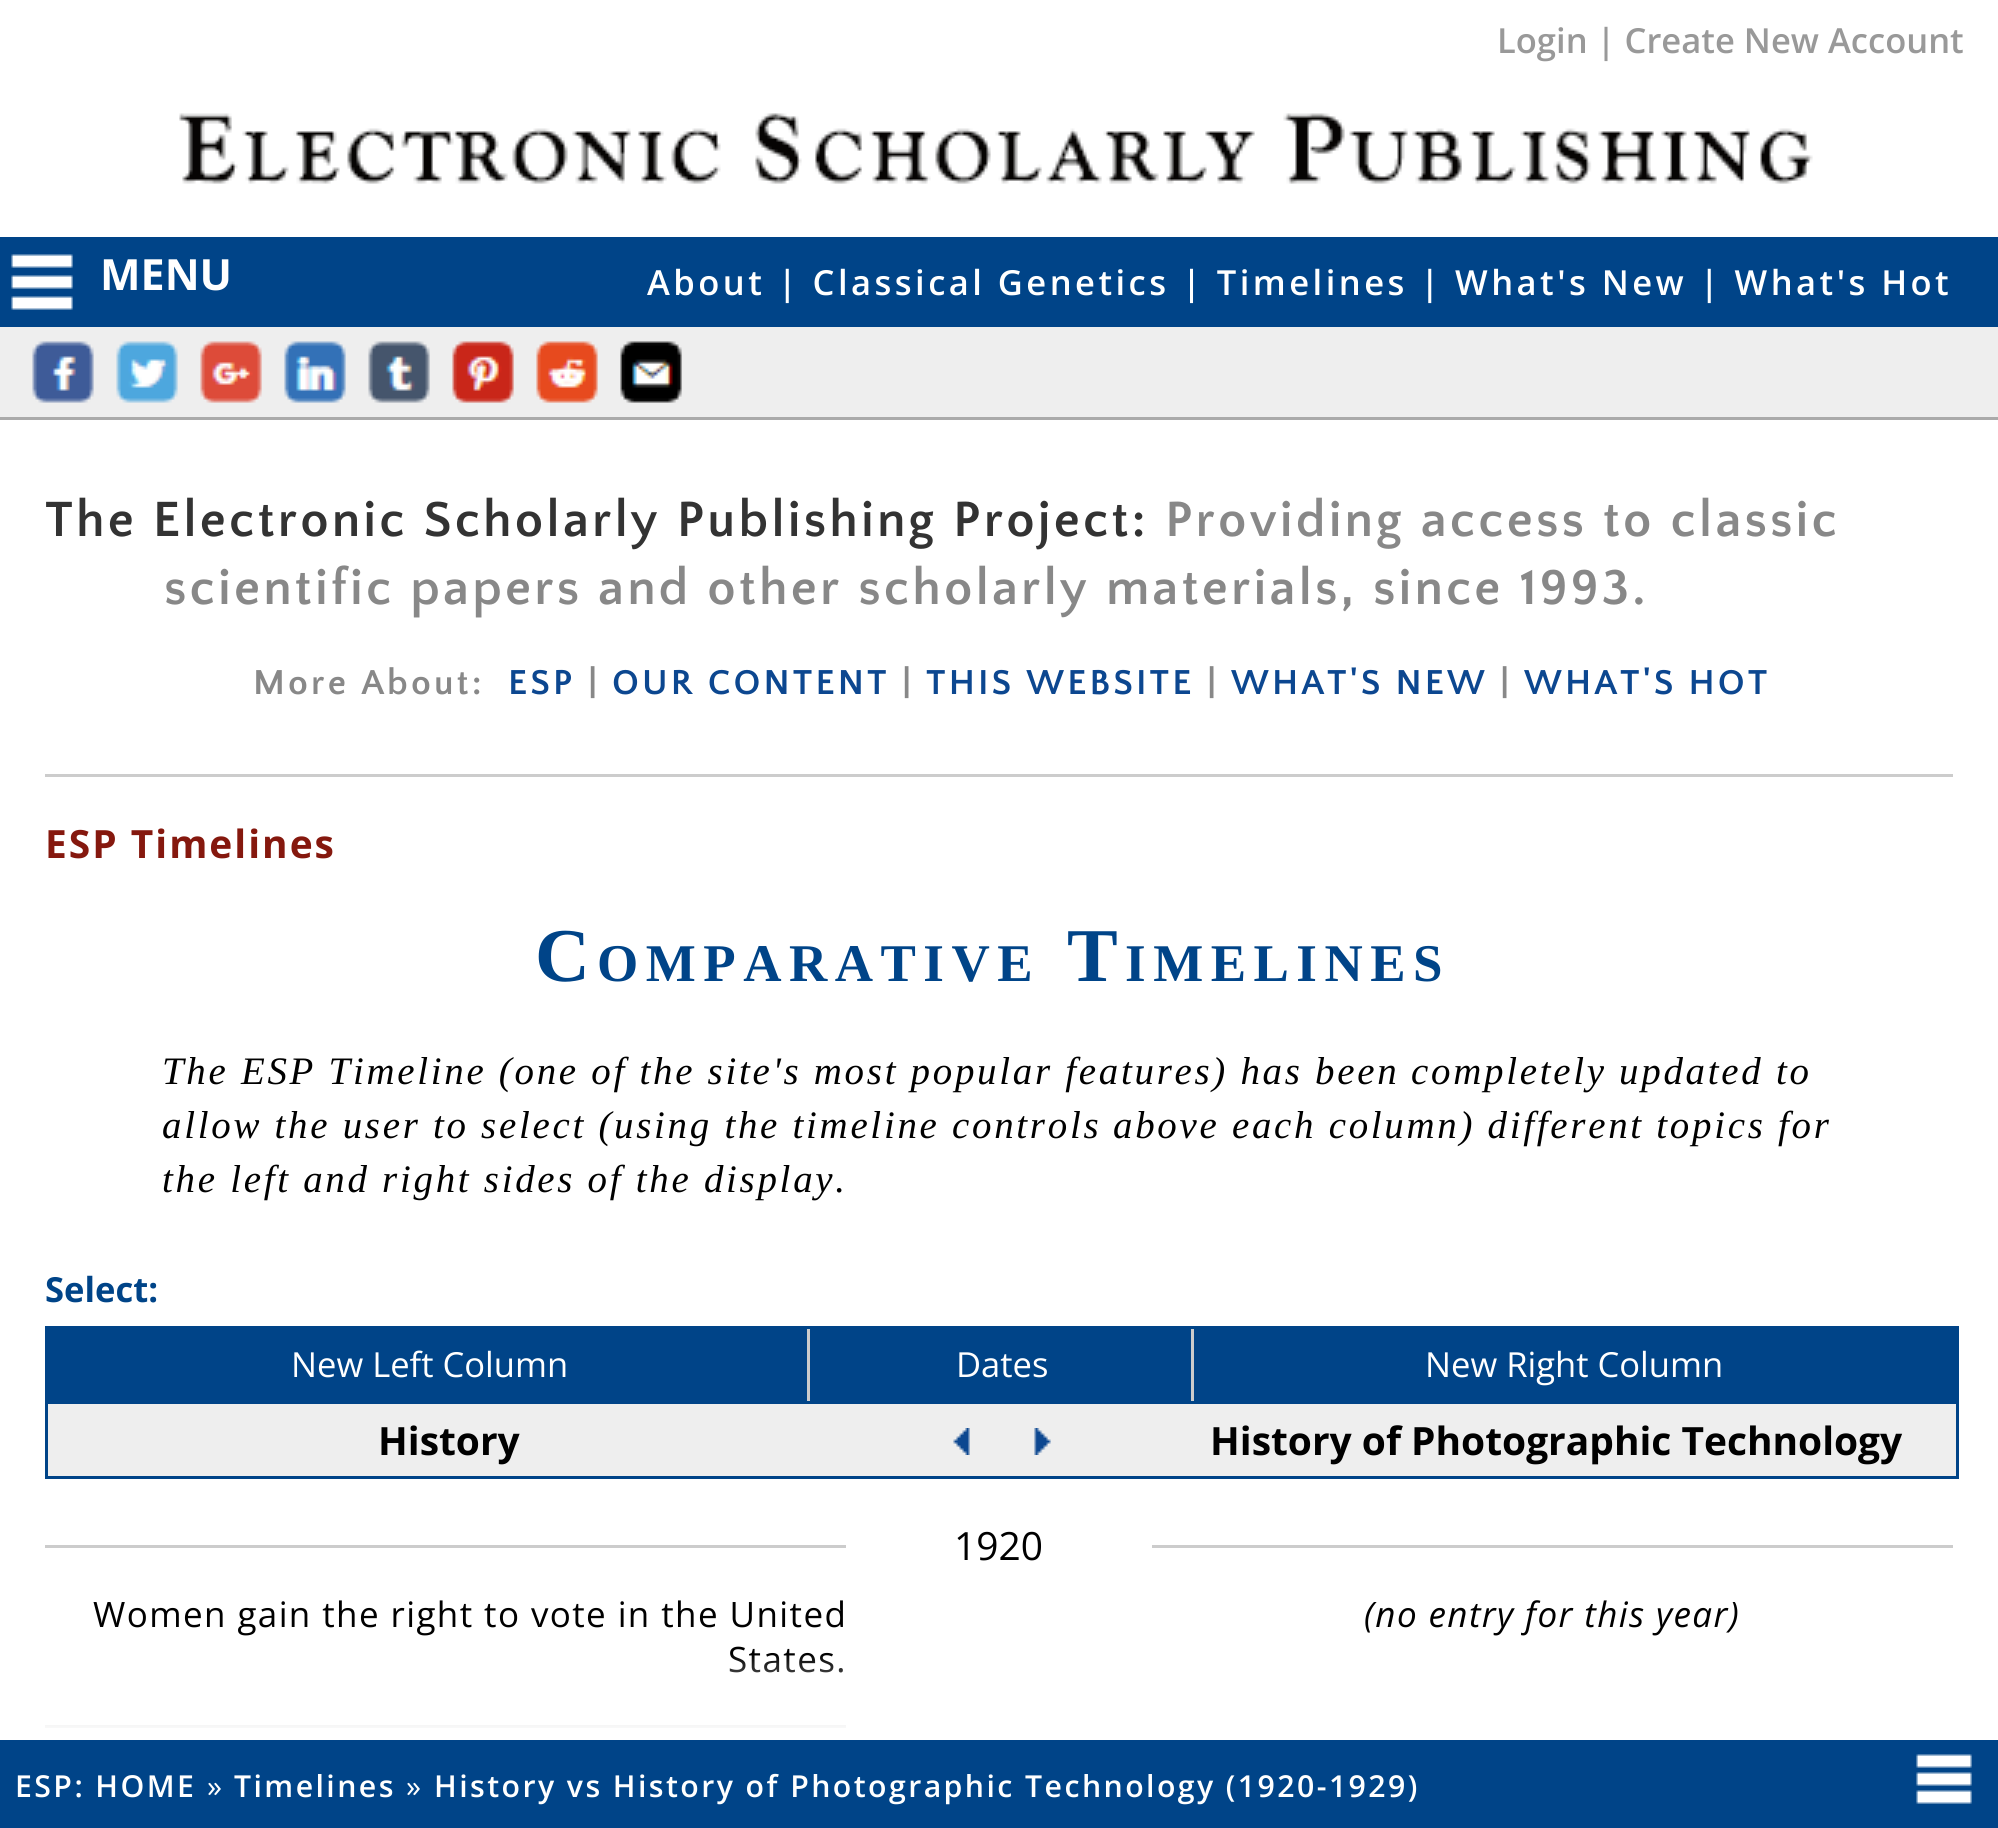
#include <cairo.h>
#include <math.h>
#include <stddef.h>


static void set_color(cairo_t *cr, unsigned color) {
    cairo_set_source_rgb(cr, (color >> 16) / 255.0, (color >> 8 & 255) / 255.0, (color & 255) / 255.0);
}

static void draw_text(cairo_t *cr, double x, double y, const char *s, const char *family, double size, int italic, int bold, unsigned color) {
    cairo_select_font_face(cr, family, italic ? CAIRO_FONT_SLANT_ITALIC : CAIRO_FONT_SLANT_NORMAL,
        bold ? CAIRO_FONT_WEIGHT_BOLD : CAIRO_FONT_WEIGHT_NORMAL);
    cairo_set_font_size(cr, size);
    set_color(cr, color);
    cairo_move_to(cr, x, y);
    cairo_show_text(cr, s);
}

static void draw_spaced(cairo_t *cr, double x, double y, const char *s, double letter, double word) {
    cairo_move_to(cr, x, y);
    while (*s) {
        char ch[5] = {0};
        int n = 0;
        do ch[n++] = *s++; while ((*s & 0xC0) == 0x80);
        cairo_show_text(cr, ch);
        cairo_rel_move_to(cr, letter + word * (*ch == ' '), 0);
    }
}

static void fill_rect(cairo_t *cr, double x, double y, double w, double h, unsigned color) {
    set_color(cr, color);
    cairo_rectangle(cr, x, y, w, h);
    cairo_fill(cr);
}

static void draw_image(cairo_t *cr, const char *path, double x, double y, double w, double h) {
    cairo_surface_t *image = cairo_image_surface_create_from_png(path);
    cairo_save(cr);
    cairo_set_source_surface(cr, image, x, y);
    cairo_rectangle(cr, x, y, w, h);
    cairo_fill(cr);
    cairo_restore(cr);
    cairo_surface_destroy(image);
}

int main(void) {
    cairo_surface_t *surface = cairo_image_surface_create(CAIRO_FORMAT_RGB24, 1998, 1828);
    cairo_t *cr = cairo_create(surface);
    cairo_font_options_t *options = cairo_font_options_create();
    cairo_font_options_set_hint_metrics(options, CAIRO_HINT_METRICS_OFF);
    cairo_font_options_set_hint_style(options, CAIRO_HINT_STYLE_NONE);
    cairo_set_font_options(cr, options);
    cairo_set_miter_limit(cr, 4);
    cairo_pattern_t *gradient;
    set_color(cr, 0xFFFFFF);
    cairo_paint(cr);
    draw_text(cr, 1497, 53, "Login | Create New Account", "Open Sans SemiBold", 34.55, 0, 0, 0x999999);
    draw_image(cr, "assets/img1.png", 179, 113, 1634, 71);
    fill_rect(cr, 0, 237, 1998, 90, 0x004488);
    draw_image(cr, "assets/img2.png", 11, 254, 62, 56);
    draw_text(cr, 100, 290, "MENU", "Open Sans", 43, 0, 1, 0xFFFFFF);
    cairo_select_font_face(cr, "Open Sans SemiBold", CAIRO_FONT_SLANT_NORMAL, CAIRO_FONT_WEIGHT_NORMAL);
    cairo_set_font_size(cr, 34.55);
    draw_spaced(cr, 647, 295, "About | Classical Genetics | Timelines | What's New | What's Hot", 3.45, 0);
    fill_rect(cr, 0, 327, 1998, 90, 0xEEEEEE);
    fill_rect(cr, 0, 417, 1998, 3, 0xAAAAAA);
    draw_image(cr, "assets/img3.png", 32, 341, 650, 62);
    cairo_select_font_face(cr, "Quattrocento Sans", CAIRO_FONT_SLANT_NORMAL, CAIRO_FONT_WEIGHT_BOLD);
    cairo_set_font_size(cr, 51.8);
    set_color(cr, 0x333333);
    draw_spaced(cr, 45, 536, "The Electronic Scholarly Publishing Project:", 3.1, 0);
    set_color(cr, 0x888888);
    draw_spaced(cr, 1165, 536, "Providing access to classic", 3.1, 0);
    draw_spaced(cr, 164, 604, "scientific papers and other scholarly", 3.1, 0);
    draw_spaced(cr, 1106, 604, "materials, since 1993.", 3.1, 0);
    cairo_set_font_size(cr, 36.25);
    draw_spaced(cr, 253, 694, "More About:", 3.1, 0);
    set_color(cr, 0x0C4790);
    draw_spaced(cr, 508, 694, "ESP", 3.1, 0);
    set_color(cr, 0x888888);
    draw_spaced(cr, 588, 694, "|", 3.1, 0);
    set_color(cr, 0x0C4790);
    draw_spaced(cr, 612, 694, "OUR CONTENT", 3.1, 0);
    set_color(cr, 0x888888);
    draw_spaced(cr, 902, 694, "|", 3.1, 0);
    set_color(cr, 0x0C4790);
    draw_spaced(cr, 926, 694, "THIS WEBSITE", 3.1, 0);
    set_color(cr, 0x888888);
    draw_spaced(cr, 1207, 694, "|", 3.1, 0);
    set_color(cr, 0x0C4790);
    draw_spaced(cr, 1231, 694, "WHAT'S NEW", 3.1, 0);
    set_color(cr, 0x888888);
    draw_spaced(cr, 1500, 694, "|", 3.1, 0);
    set_color(cr, 0x0C4790);
    draw_spaced(cr, 1524, 694, "WHAT'S HOT", 3.1, 0);
    fill_rect(cr, 45, 774, 1908, 3, 0xCCCCCC);
    cairo_select_font_face(cr, "Open Sans", CAIRO_FONT_SLANT_NORMAL, CAIRO_FONT_WEIGHT_BOLD);
    cairo_set_font_size(cr, 38.9);
    set_color(cr, 0x85180E);
    draw_spaced(cr, 45, 858, "ESP Timelines", 2, 0);
    cairo_select_font_face(cr, "Liberation Serif", CAIRO_FONT_SLANT_NORMAL, CAIRO_FONT_WEIGHT_BOLD);
    cairo_set_font_size(cr, 76);
    set_color(cr, 0x004488);
    draw_spaced(cr, 535, 981, "C", 7.5, 0);
    cairo_set_font_size(cr, 53);
    draw_spaced(cr, 597, 981, "OMPARATIVE", 7.5, 0);
    cairo_set_font_size(cr, 76);
    draw_spaced(cr, 1067, 981, "T", 7.5, 0);
    cairo_set_font_size(cr, 53);
    draw_spaced(cr, 1125, 981, "IMELINES", 7.5, 0);
    cairo_select_font_face(cr, "Liberation Serif", CAIRO_FONT_SLANT_ITALIC, CAIRO_FONT_WEIGHT_NORMAL);
    cairo_set_font_size(cr, 38.9);
    set_color(cr, 0x000000);
    draw_spaced(cr, 162, 1084, "The ESP Timeline (one of the site's most popular features) has been", 2.72, 0);
    draw_spaced(cr, 1411, 1084, "completely updated to", 2.72, 0);
    draw_spaced(cr, 162, 1138, "allow the user to select (using the timeline controls", 2.72, 0);
    draw_spaced(cr, 1113, 1138, "above each column) different topics for", 2.72, 0);
    draw_spaced(cr, 162, 1192, "the left and right sides of the display.", 2.72, 0);
    draw_text(cr, 45, 1302, "Select:", "Open Sans", 34.55, 0, 1, 0x004488);
    fill_rect(cr, 45, 1326, 1914, 3, 0x004488);
    fill_rect(cr, 45, 1329, 762, 72, 0x004488);
    draw_text(cr, 291, 1377, "New Left Column", "Open Sans", 34.55, 0, 0, 0xFFFFFF);
    fill_rect(cr, 810, 1329, 381, 72, 0x004488);
    fill_rect(cr, 807, 1329, 3, 72, 0xCCCCCC);
    draw_text(cr, 956, 1377, "Dates", "Open Sans", 34.55, 0, 0, 0xFFFFFF);
    fill_rect(cr, 1194, 1329, 765, 72, 0x004488);
    fill_rect(cr, 1191, 1329, 3, 72, 0xCCCCCC);
    draw_text(cr, 1425, 1377, "New Right Column", "Open Sans", 34.55, 0, 0, 0xFFFFFF);
    set_color(cr, 0xEEEEEE);
    cairo_rectangle(cr, 46.5, 1402.5, 1911, 75);
    cairo_fill_preserve(cr);
    set_color(cr, 0x004488);
    cairo_set_line_width(cr, 3);
    cairo_stroke(cr);
    draw_text(cr, 378, 1455, "History", "Open Sans", 38.9, 0, 1, 0x000000);
    draw_image(cr, "assets/img4.png", 953, 1428, 17, 27);
    draw_image(cr, "assets/img5.png", 1034, 1428, 17, 27);
    draw_text(cr, 1210, 1455, "History of Photographic Technology", "Open Sans", 38.9, 0, 1, 0x000000);
    draw_text(cr, 954, 1560, "1920", "Open Sans", 38.9, 0, 0, 0x000000);
    fill_rect(cr, 45, 1545, 801, 3, 0xCCCCCC);
    cairo_set_font_size(cr, 35);
    set_color(cr, 0x000000);
    draw_spaced(cr, 93, 1627, "Women gain the right to vote in the United", 1.4, 0);
    draw_spaced(cr, 728, 1672, "States.", 1.4, 0);
    fill_rect(cr, 45, 1725, 801, 3, 0xCCCCCC);
    fill_rect(cr, 1152, 1545, 801, 3, 0xCCCCCC);
    cairo_select_font_face(cr, "Open Sans", CAIRO_FONT_SLANT_ITALIC, CAIRO_FONT_WEIGHT_NORMAL);
    set_color(cr, 0x000000);
    draw_spaced(cr, 1364, 1627, "(no entry for this year)", 1.4, 0);
    gradient = cairo_pattern_create_linear(999, 1653, 999, 1740);
    cairo_pattern_add_color_stop_rgba(gradient, 0, 1, 1, 1, 0);
    cairo_pattern_add_color_stop_rgba(gradient, 1, 1, 1, 1, 1);
    cairo_set_source(cr, gradient);
    cairo_pattern_destroy(gradient);
    cairo_rectangle(cr, 45, 1655, 801, 73);
    cairo_fill(cr);
    fill_rect(cr, 0, 1740, 1998, 88, 0x004488);
    cairo_select_font_face(cr, "Open Sans SemiBold", CAIRO_FONT_SLANT_NORMAL, CAIRO_FONT_WEIGHT_NORMAL);
    cairo_set_font_size(cr, 30.25);
    set_color(cr, 0xFFFFFF);
    draw_spaced(cr, 15, 1797, "ESP: HOME", 2.42, 0);
    cairo_select_font_face(cr, "Open Sans", CAIRO_FONT_SLANT_NORMAL, CAIRO_FONT_WEIGHT_NORMAL);
    draw_spaced(cr, 207, 1797, "»", 2.42, 0);
    cairo_select_font_face(cr, "Open Sans SemiBold", CAIRO_FONT_SLANT_NORMAL, CAIRO_FONT_WEIGHT_NORMAL);
    draw_spaced(cr, 234, 1797, "Timelines", 2.42, 0);
    cairo_select_font_face(cr, "Open Sans", CAIRO_FONT_SLANT_NORMAL, CAIRO_FONT_WEIGHT_NORMAL);
    draw_spaced(cr, 406, 1797, "»", 2.42, 0);
    cairo_select_font_face(cr, "Open Sans SemiBold", CAIRO_FONT_SLANT_NORMAL, CAIRO_FONT_WEIGHT_NORMAL);
    draw_spaced(cr, 434, 1797, "History vs History of Photographic Technology (1920-1929)", 2.42, 0);
    draw_image(cr, "assets/img6.png", 1916, 1754, 56, 50);
    cairo_surface_write_to_png(surface, "output.png");
    cairo_font_options_destroy(options);
    cairo_destroy(cr);
    cairo_surface_destroy(surface);
    return 0;
}
